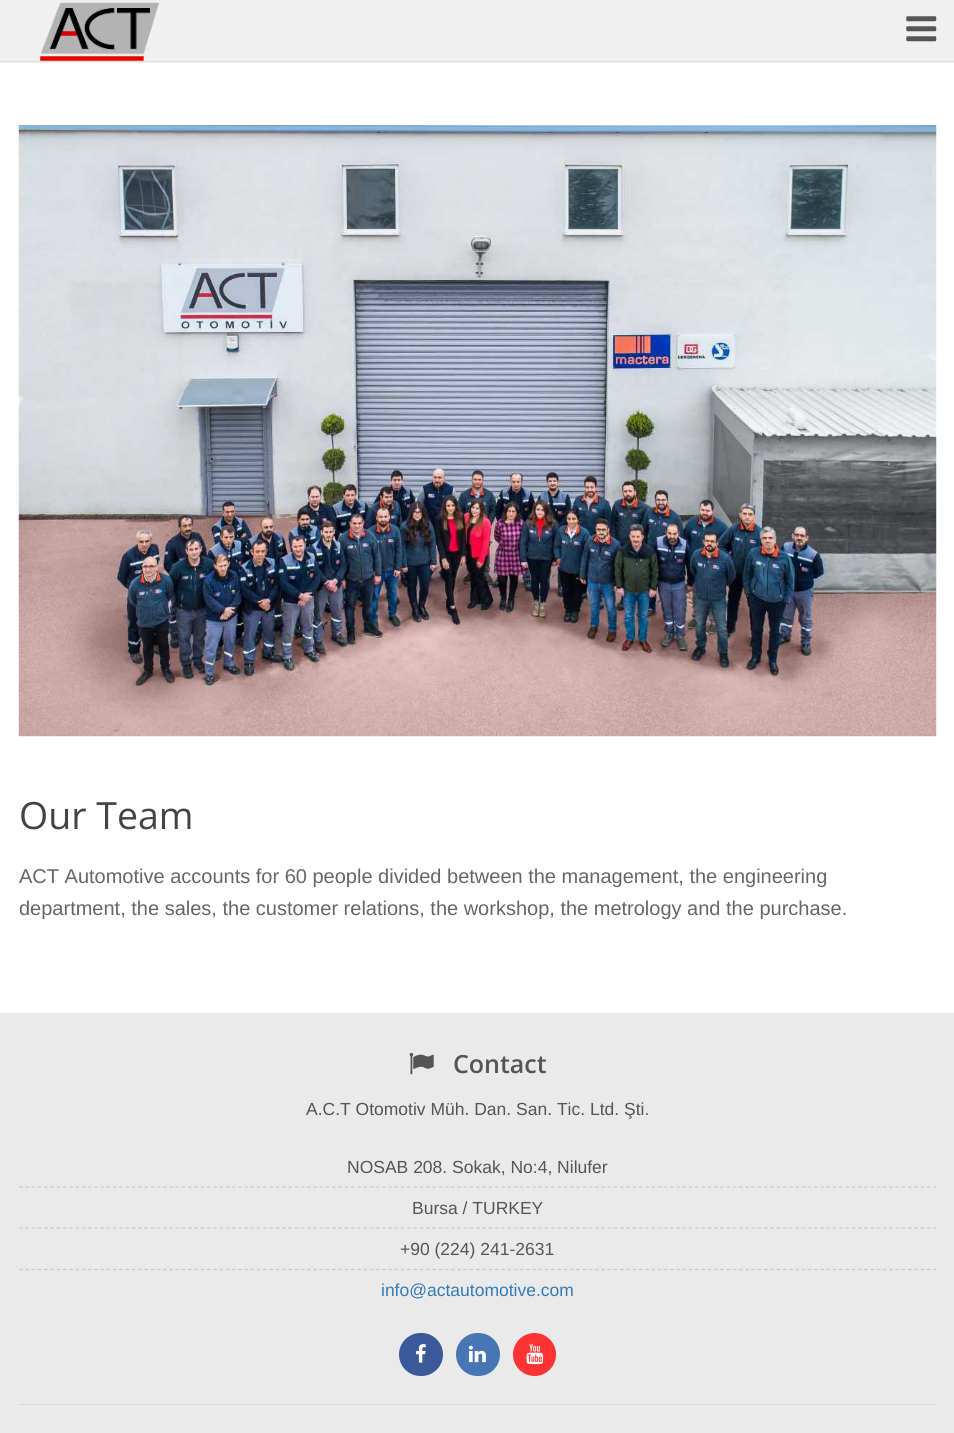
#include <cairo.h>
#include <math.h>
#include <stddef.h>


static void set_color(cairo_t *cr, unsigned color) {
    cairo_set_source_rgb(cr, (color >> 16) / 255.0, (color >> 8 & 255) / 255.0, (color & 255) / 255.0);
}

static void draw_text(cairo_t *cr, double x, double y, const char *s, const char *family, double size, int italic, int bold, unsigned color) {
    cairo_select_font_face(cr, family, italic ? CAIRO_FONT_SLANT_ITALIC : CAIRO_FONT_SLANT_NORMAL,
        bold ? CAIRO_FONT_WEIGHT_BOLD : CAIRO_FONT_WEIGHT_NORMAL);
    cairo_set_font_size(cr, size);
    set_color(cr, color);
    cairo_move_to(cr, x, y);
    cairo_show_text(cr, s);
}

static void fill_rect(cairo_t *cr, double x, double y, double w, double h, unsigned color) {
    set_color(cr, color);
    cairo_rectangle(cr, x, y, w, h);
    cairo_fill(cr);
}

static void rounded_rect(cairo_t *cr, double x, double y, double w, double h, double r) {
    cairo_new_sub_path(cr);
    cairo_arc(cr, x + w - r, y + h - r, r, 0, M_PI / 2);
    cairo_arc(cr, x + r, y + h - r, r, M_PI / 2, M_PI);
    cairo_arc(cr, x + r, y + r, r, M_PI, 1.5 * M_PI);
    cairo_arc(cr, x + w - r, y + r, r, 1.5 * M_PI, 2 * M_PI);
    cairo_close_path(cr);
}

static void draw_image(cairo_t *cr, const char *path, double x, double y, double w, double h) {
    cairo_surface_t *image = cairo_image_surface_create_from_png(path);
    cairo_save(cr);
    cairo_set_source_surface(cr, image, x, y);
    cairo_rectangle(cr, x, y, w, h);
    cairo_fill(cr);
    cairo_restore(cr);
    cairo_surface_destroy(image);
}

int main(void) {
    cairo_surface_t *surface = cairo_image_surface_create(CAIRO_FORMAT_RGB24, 954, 1433);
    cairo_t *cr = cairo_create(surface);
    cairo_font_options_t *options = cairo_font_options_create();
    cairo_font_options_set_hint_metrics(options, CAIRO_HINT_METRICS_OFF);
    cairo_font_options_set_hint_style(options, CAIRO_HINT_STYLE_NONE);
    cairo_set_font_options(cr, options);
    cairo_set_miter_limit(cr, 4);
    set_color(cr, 0xF0F0F0);
    cairo_paint(cr);
    fill_rect(cr, 0, 61, 954, 1, 0xDDDDDD);
    draw_image(cr, "assets/img1.png", 40, 2, 119, 59);
    draw_image(cr, "assets/img2.png", 906, 16, 31, 26);
    fill_rect(cr, 0, 63, 954, 950, 0xFFFFFF);
    draw_image(cr, "assets/img3.png", 18, 125, 919, 612);
    draw_text(cr, 19, 829, "Our Team", "Open Sans", 37.5, 0, 0, 0x444444);
    draw_text(cr, 19, 883, "ACT Automotive accounts for 60 people divided between the management, the engineering", "Liberation Sans", 20, 0, 0, 0x666666);
    draw_text(cr, 19, 915, "department, the sales, the customer relations, the workshop, the metrology and the purchase.", "Liberation Sans", 20, 0, 0, 0x666666);
    fill_rect(cr, 0, 1013, 954, 420, 0xEAEAEA);
    draw_image(cr, "assets/img4.png", 409, 1052, 25, 23);
    draw_text(cr, 453, 1073, "Contact", "Open Sans SemiBold", 25, 0, 0, 0x555555);
    draw_text(cr, 306, 1115, "A.C.T Otomotiv Müh. Dan. San. Tic. Ltd. Şti.", "Liberation Sans", 17.5, 0, 0, 0x555555);
    cairo_new_path(cr);
    cairo_move_to(cr, 19, 1187);
    cairo_line_to(cr, 936, 1187);
    set_color(cr, 0xCACACA);
    cairo_set_line_width(cr, 1.2);
    cairo_set_dash(cr, (double[]){3.75, 2.51}, 2, 0);
    cairo_stroke(cr);
    draw_text(cr, 347, 1173, "NOSAB 208. Sokak, No:4, Nilufer", "Liberation Sans", 17.5, 0, 0, 0x555555);
    cairo_new_path(cr);
    cairo_move_to(cr, 19, 1228);
    cairo_line_to(cr, 936, 1228);
    set_color(cr, 0xCACACA);
    cairo_stroke(cr);
    draw_text(cr, 412, 1214, "Bursa / TURKEY", "Liberation Sans", 17.5, 0, 0, 0x555555);
    cairo_new_path(cr);
    cairo_move_to(cr, 19, 1269.5);
    cairo_line_to(cr, 936, 1269.5);
    set_color(cr, 0xCACACA);
    cairo_stroke(cr);
    draw_text(cr, 400, 1255, "+90 (224) 241-2631", "Liberation Sans", 17.5, 0, 0, 0x555555);
    draw_text(cr, 381, 1296, "info@actautomotive.com", "Liberation Sans", 17.5, 0, 0, 0x337AB7);
    set_color(cr, 0x3B5998);
    rounded_rect(cr, 399, 1333, 44, 43, 21.5);
    cairo_fill(cr);
    draw_image(cr, "assets/img5.png", 416, 1344, 10, 19);
    set_color(cr, 0x4875B4);
    rounded_rect(cr, 456, 1333, 44, 43, 21.5);
    cairo_fill(cr);
    draw_image(cr, "assets/img6.png", 468, 1345, 18, 18);
    set_color(cr, 0xFF3333);
    cairo_arc(cr, 534.5, 1354.5, 21.5, 0, 2 * M_PI);
    cairo_fill(cr);
    draw_image(cr, "assets/img7.png", 526, 1344, 18, 21);
    fill_rect(cr, 19, 1404, 917, 1, 0xDADADA);
    cairo_surface_write_to_png(surface, "output.png");
    cairo_font_options_destroy(options);
    cairo_destroy(cr);
    cairo_surface_destroy(surface);
    return 0;
}
